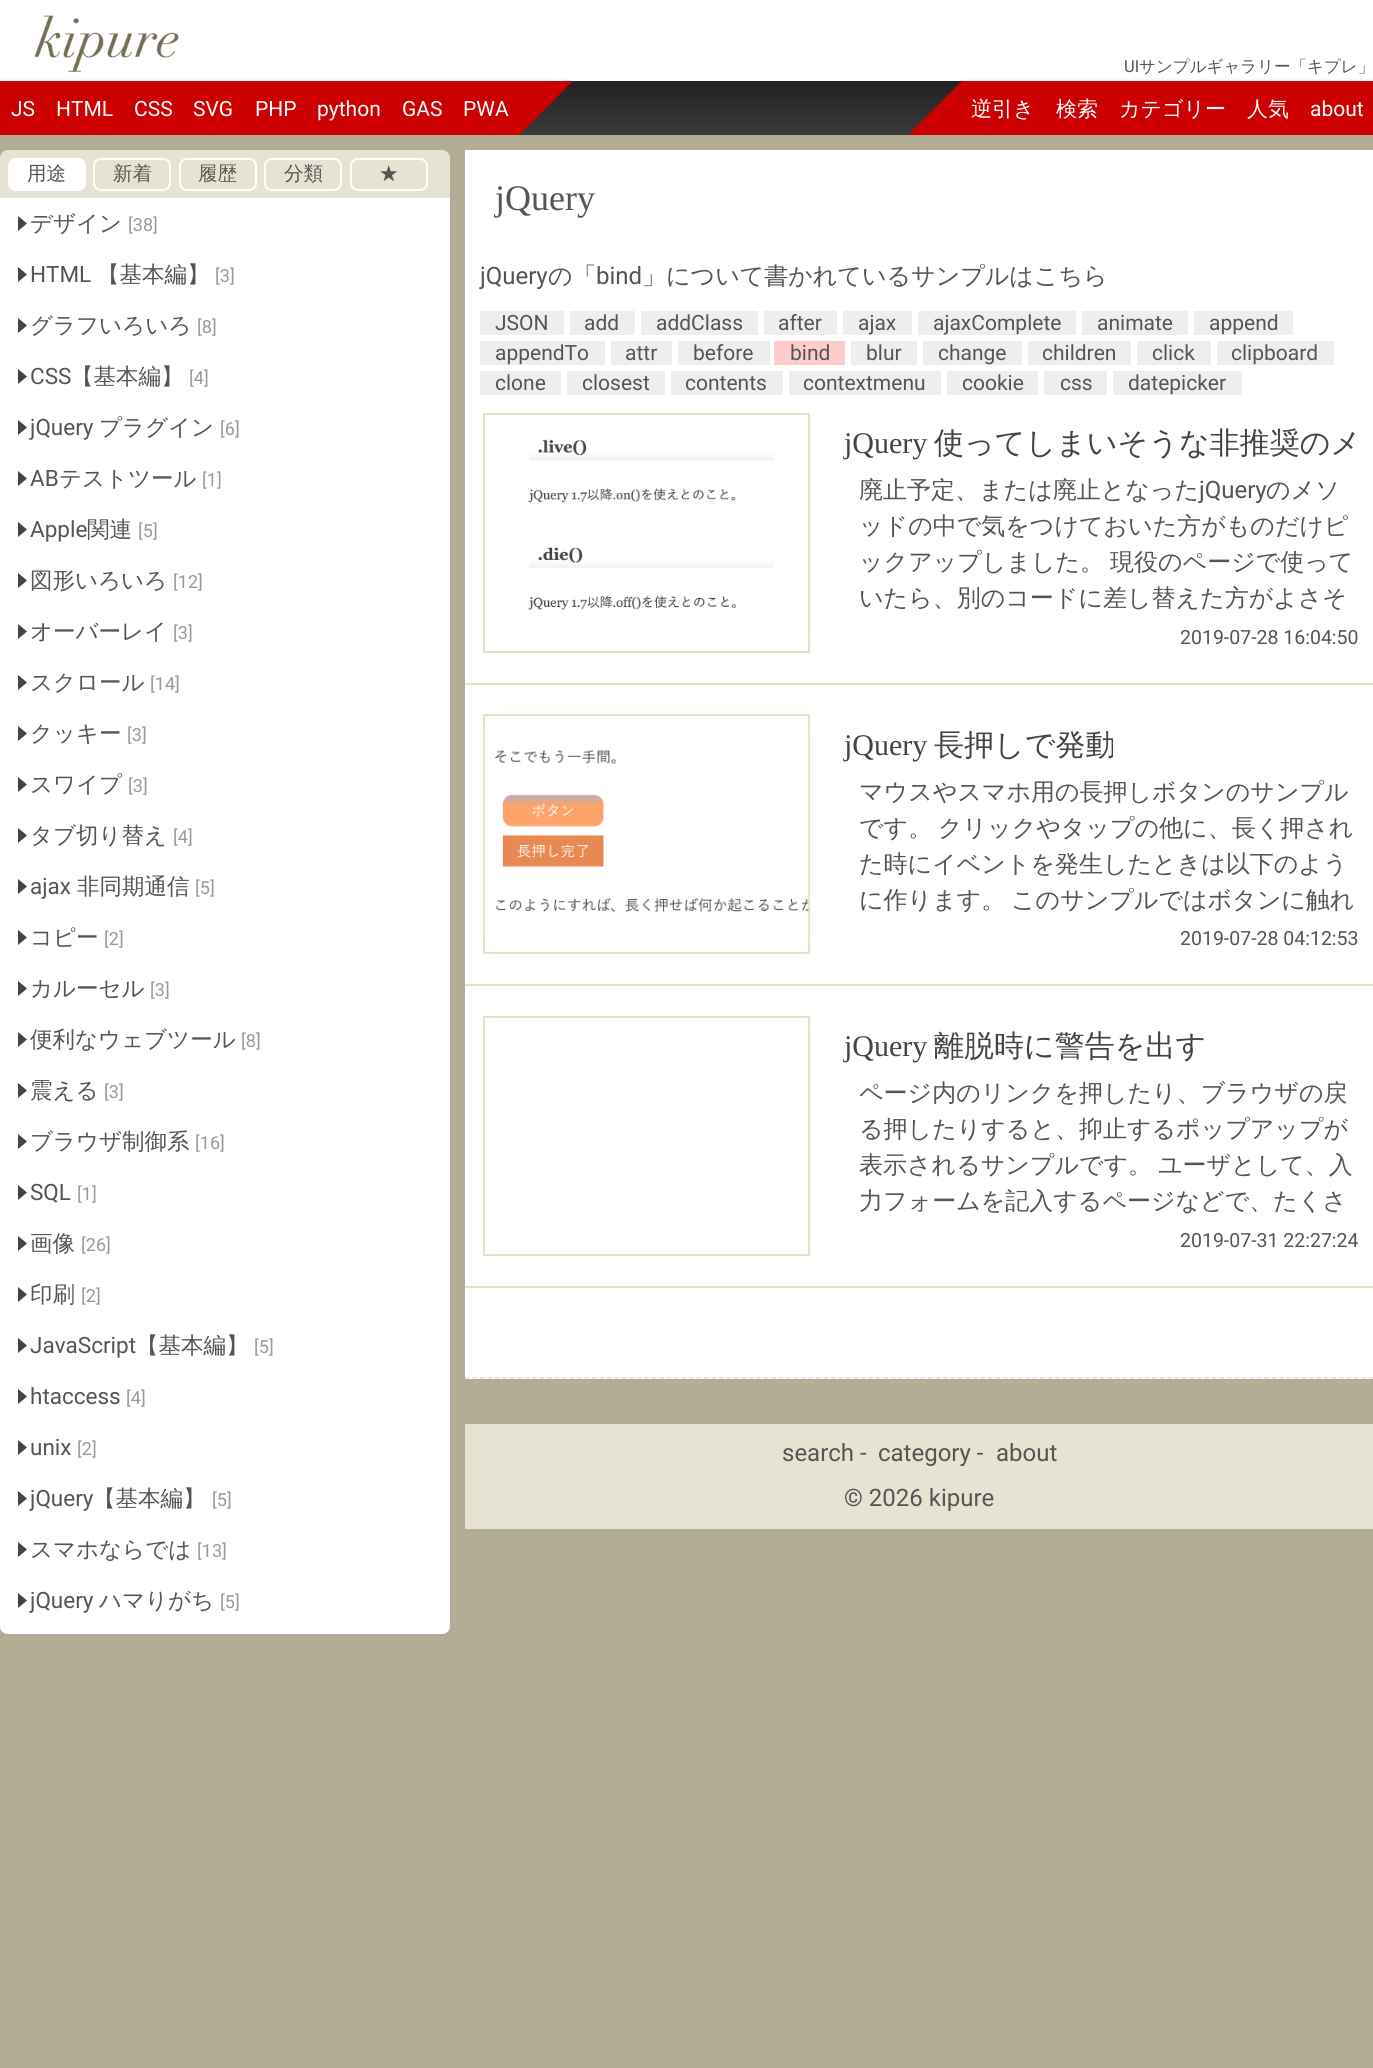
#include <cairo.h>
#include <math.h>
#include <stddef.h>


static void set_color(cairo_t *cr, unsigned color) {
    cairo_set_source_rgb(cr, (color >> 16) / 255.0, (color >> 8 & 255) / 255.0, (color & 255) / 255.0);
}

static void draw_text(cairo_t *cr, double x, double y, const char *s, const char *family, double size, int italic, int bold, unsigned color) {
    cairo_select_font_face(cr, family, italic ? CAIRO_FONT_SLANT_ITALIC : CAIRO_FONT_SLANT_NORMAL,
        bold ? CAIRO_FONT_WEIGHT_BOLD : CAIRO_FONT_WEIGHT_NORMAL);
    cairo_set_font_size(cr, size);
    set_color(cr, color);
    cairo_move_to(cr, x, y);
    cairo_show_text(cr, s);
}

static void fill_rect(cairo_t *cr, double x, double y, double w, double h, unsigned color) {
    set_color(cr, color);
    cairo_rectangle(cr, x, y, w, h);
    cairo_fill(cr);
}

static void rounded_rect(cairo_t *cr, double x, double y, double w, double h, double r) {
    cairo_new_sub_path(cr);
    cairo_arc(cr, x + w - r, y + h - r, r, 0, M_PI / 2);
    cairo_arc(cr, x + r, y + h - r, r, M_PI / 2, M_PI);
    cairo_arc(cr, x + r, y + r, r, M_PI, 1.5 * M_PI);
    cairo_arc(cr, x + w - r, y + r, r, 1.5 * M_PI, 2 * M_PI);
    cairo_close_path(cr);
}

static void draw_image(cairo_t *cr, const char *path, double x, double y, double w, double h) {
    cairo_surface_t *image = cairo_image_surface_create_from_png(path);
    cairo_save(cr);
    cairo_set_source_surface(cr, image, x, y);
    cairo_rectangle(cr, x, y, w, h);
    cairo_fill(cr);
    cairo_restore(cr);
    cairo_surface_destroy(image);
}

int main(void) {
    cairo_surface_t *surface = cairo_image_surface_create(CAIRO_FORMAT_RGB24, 1373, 2068);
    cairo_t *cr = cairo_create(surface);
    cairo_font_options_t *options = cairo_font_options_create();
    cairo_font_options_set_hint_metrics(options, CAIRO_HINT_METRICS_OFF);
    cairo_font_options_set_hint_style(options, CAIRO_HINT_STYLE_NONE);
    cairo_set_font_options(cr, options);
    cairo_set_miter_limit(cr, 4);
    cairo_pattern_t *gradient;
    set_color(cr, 0xB1AC93);
    cairo_paint(cr);
    fill_rect(cr, 0, 0, 1373, 81, 0xFFFFFF);
    draw_image(cr, "assets/img1.png", 34, 15, 145, 57);
    draw_text(cr, 1124, 72, "UI", "Roboto", 16.5, 0, 0, 0x555555);
    draw_text(cr, 1139, 72, "サンプルギャラリー「キプレ」", "WenQuanYi Zen Hei Medium", 16.5, 0, 0, 0x555555);
    gradient = cairo_pattern_create_linear(344, 81, 344, 135);
    cairo_pattern_add_color_stop_rgba(gradient, 0, 0.133, 0.133, 0.133, 1);
    cairo_pattern_add_color_stop_rgba(gradient, 1, 0.227, 0.227, 0.227, 1);
    cairo_set_source(cr, gradient);
    cairo_pattern_destroy(gradient);
    cairo_rectangle(cr, 519, 81, 168, 54);
    cairo_fill(cr);
    fill_rect(cr, 0, 81, 519, 54, 0xCC0000);
    draw_text(cr, 11, 116, "JS", "Roboto", 21, 0, 0, 0xFFFFFF);
    draw_text(cr, 56, 116, "HTML", "Roboto", 21, 0, 0, 0xFFFFFF);
    draw_text(cr, 134, 116, "CSS", "Roboto", 21, 0, 0, 0xFFFFFF);
    draw_text(cr, 193, 116, "SVG", "Roboto", 21, 0, 0, 0xFFFFFF);
    draw_text(cr, 255, 116, "PHP", "Roboto", 21, 0, 0, 0xFFFFFF);
    draw_text(cr, 317, 116, "python", "Roboto", 21, 0, 0, 0xFFFFFF);
    draw_text(cr, 402, 116, "GAS", "Roboto", 21, 0, 0, 0xFFFFFF);
    draw_text(cr, 463, 116, "PWA", "Roboto", 21, 0, 0, 0xFFFFFF);
    set_color(cr, 0xCC0000);
    cairo_new_path(cr);
    cairo_move_to(cr, 519, 81);
    cairo_line_to(cr, 573, 81);
    cairo_line_to(cr, 519, 135);
    cairo_close_path(cr);
    cairo_fill(cr);
    gradient = cairo_pattern_create_linear(1031, 81, 1031, 135);
    cairo_pattern_add_color_stop_rgba(gradient, 0, 0.133, 0.133, 0.133, 1);
    cairo_pattern_add_color_stop_rgba(gradient, 1, 0.227, 0.227, 0.227, 1);
    cairo_set_source(cr, gradient);
    cairo_pattern_destroy(gradient);
    cairo_rectangle(cr, 687, 81, 275, 54);
    cairo_fill(cr);
    set_color(cr, 0xCC0000);
    cairo_new_path(cr);
    cairo_move_to(cr, 962, 81);
    cairo_line_to(cr, 908, 135);
    cairo_line_to(cr, 962, 135);
    cairo_close_path(cr);
    cairo_fill(cr);
    fill_rect(cr, 962, 81, 411, 54, 0xCC0000);
    draw_text(cr, 971, 116, "逆引き", "WenQuanYi Zen Hei Medium", 21, 0, 0, 0xFFFFFF);
    draw_text(cr, 1056, 116, "検索", "WenQuanYi Zen Hei Medium", 21, 0, 0, 0xFFFFFF);
    draw_text(cr, 1119, 116, "カテゴリー", "WenQuanYi Zen Hei Medium", 21, 0, 0, 0xFFFFFF);
    draw_text(cr, 1247, 116, "人気", "WenQuanYi Zen Hei Medium", 21, 0, 0, 0xFFFFFF);
    draw_text(cr, 1310, 116, "about", "Roboto", 21, 0, 0, 0xFFFFFF);
    set_color(cr, 0xE7E3D2);
    rounded_rect(cr, 0, 150, 450, 1484, 8);
    cairo_fill(cr);
    set_color(cr, 0xFFFFFF);
    rounded_rect(cr, 9, 159, 76, 31, 7);
    cairo_fill_preserve(cr);
    cairo_stroke(cr);
    draw_text(cr, 27, 180, "用途", "WenQuanYi Zen Hei Medium", 19.5, 0, 0, 0x555555);
    rounded_rect(cr, 94, 159, 76, 31, 7);
    set_color(cr, 0xFFFFEE);
    cairo_stroke(cr);
    draw_text(cr, 113, 180, "新着", "WenQuanYi Zen Hei Medium", 19.5, 0, 0, 0x555555);
    rounded_rect(cr, 180, 159, 76, 31, 7);
    set_color(cr, 0xFFFFEE);
    cairo_stroke(cr);
    draw_text(cr, 198, 180, "履歴", "WenQuanYi Zen Hei Medium", 19.5, 0, 0, 0x555555);
    rounded_rect(cr, 265, 159, 76, 31, 7);
    set_color(cr, 0xFFFFEE);
    cairo_stroke(cr);
    draw_text(cr, 284, 180, "分類", "WenQuanYi Zen Hei Medium", 19.5, 0, 0, 0x555555);
    rounded_rect(cr, 351, 159, 76, 31, 7);
    set_color(cr, 0xFFFFEE);
    cairo_stroke(cr);
    draw_text(cr, 379, 180, "★", "WenQuanYi Zen Hei Medium", 19.5, 0, 0, 0x555555);
    fill_rect(cr, 0, 198, 450, 1428, 0xFFFFFF);
    set_color(cr, 0x444444);
    cairo_new_path(cr);
    cairo_move_to(cr, 18, 216);
    cairo_line_to(cr, 27, 223.5);
    cairo_line_to(cr, 18, 231);
    cairo_close_path(cr);
    cairo_fill(cr);
    draw_text(cr, 30, 231, "デザイン", "WenQuanYi Zen Hei Medium", 22.5, 0, 0, 0x555555);
    draw_text(cr, 128, 231, "[38]", "Roboto", 18, 0, 0, 0x999999);
    set_color(cr, 0x444444);
    cairo_new_path(cr);
    cairo_move_to(cr, 18, 267);
    cairo_line_to(cr, 27, 274.5);
    cairo_line_to(cr, 18, 282);
    cairo_close_path(cr);
    cairo_fill(cr);
    draw_text(cr, 30, 282, "HTML", "Roboto", 22.5, 0, 0, 0x555555);
    draw_text(cr, 97, 282, "【基本編】", "WenQuanYi Zen Hei Medium", 22.5, 0, 0, 0x555555);
    draw_text(cr, 215, 282, "[3]", "Roboto", 18, 0, 0, 0x999999);
    set_color(cr, 0x444444);
    cairo_new_path(cr);
    cairo_move_to(cr, 18, 318);
    cairo_line_to(cr, 27, 325.5);
    cairo_line_to(cr, 18, 333);
    cairo_close_path(cr);
    cairo_fill(cr);
    draw_text(cr, 30, 333, "グラフいろいろ", "WenQuanYi Zen Hei Medium", 22.5, 0, 0, 0x555555);
    draw_text(cr, 197, 333, "[8]", "Roboto", 18, 0, 0, 0x999999);
    set_color(cr, 0x444444);
    cairo_new_path(cr);
    cairo_move_to(cr, 18, 369);
    cairo_line_to(cr, 27, 376.5);
    cairo_line_to(cr, 18, 384);
    cairo_close_path(cr);
    cairo_fill(cr);
    draw_text(cr, 30, 384, "CSS", "Roboto", 22.5, 0, 0, 0x555555);
    draw_text(cr, 71, 384, "【基本編】", "WenQuanYi Zen Hei Medium", 22.5, 0, 0, 0x555555);
    draw_text(cr, 189, 384, "[4]", "Roboto", 18, 0, 0, 0x999999);
    set_color(cr, 0x444444);
    cairo_new_path(cr);
    cairo_move_to(cr, 18, 420);
    cairo_line_to(cr, 27, 427.5);
    cairo_line_to(cr, 18, 435);
    cairo_close_path(cr);
    cairo_fill(cr);
    draw_text(cr, 30, 435, "jQuery", "Roboto", 22.5, 0, 0, 0x555555);
    draw_text(cr, 99, 435, "プラグイン", "WenQuanYi Zen Hei Medium", 22.5, 0, 0, 0x555555);
    draw_text(cr, 220, 435, "[6]", "Roboto", 18, 0, 0, 0x999999);
    set_color(cr, 0x444444);
    cairo_new_path(cr);
    cairo_move_to(cr, 18, 471);
    cairo_line_to(cr, 27, 478.5);
    cairo_line_to(cr, 18, 486);
    cairo_close_path(cr);
    cairo_fill(cr);
    draw_text(cr, 30, 486, "AB", "Roboto", 22.5, 0, 0, 0x555555);
    draw_text(cr, 59, 486, "テストツール", "WenQuanYi Zen Hei Medium", 22.5, 0, 0, 0x555555);
    draw_text(cr, 202, 486, "[1]", "Roboto", 18, 0, 0, 0x999999);
    set_color(cr, 0x444444);
    cairo_new_path(cr);
    cairo_move_to(cr, 18, 522);
    cairo_line_to(cr, 27, 529.5);
    cairo_line_to(cr, 18, 537);
    cairo_close_path(cr);
    cairo_fill(cr);
    draw_text(cr, 30, 537, "Apple", "Roboto", 22.5, 0, 0, 0x555555);
    draw_text(cr, 87, 537, "関連", "WenQuanYi Zen Hei Medium", 22.5, 0, 0, 0x555555);
    draw_text(cr, 138, 537, "[5]", "Roboto", 18, 0, 0, 0x999999);
    set_color(cr, 0x444444);
    cairo_new_path(cr);
    cairo_move_to(cr, 18, 573);
    cairo_line_to(cr, 27, 580.5);
    cairo_line_to(cr, 18, 588);
    cairo_close_path(cr);
    cairo_fill(cr);
    draw_text(cr, 30, 588, "図形いろいろ", "WenQuanYi Zen Hei Medium", 22.5, 0, 0, 0x555555);
    draw_text(cr, 173, 588, "[12]", "Roboto", 18, 0, 0, 0x999999);
    set_color(cr, 0x444444);
    cairo_new_path(cr);
    cairo_move_to(cr, 18, 624);
    cairo_line_to(cr, 27, 631.5);
    cairo_line_to(cr, 18, 639);
    cairo_close_path(cr);
    cairo_fill(cr);
    draw_text(cr, 30, 639, "オーバーレイ", "WenQuanYi Zen Hei Medium", 22.5, 0, 0, 0x555555);
    draw_text(cr, 173, 639, "[3]", "Roboto", 18, 0, 0, 0x999999);
    set_color(cr, 0x444444);
    cairo_new_path(cr);
    cairo_move_to(cr, 18, 675);
    cairo_line_to(cr, 27, 682.5);
    cairo_line_to(cr, 18, 690);
    cairo_close_path(cr);
    cairo_fill(cr);
    draw_text(cr, 30, 690, "スクロール", "WenQuanYi Zen Hei Medium", 22.5, 0, 0, 0x555555);
    draw_text(cr, 150, 690, "[14]", "Roboto", 18, 0, 0, 0x999999);
    set_color(cr, 0x444444);
    cairo_new_path(cr);
    cairo_move_to(cr, 18, 726);
    cairo_line_to(cr, 27, 733.5);
    cairo_line_to(cr, 18, 741);
    cairo_close_path(cr);
    cairo_fill(cr);
    draw_text(cr, 30, 741, "クッキー", "WenQuanYi Zen Hei Medium", 22.5, 0, 0, 0x555555);
    draw_text(cr, 127, 741, "[3]", "Roboto", 18, 0, 0, 0x999999);
    set_color(cr, 0x444444);
    cairo_new_path(cr);
    cairo_move_to(cr, 18, 777);
    cairo_line_to(cr, 27, 784.5);
    cairo_line_to(cr, 18, 792);
    cairo_close_path(cr);
    cairo_fill(cr);
    draw_text(cr, 30, 792, "スワイプ", "WenQuanYi Zen Hei Medium", 22.5, 0, 0, 0x555555);
    draw_text(cr, 128, 792, "[3]", "Roboto", 18, 0, 0, 0x999999);
    set_color(cr, 0x444444);
    cairo_new_path(cr);
    cairo_move_to(cr, 18, 828);
    cairo_line_to(cr, 27, 835.5);
    cairo_line_to(cr, 18, 843);
    cairo_close_path(cr);
    cairo_fill(cr);
    draw_text(cr, 30, 843, "タブ切り替え", "WenQuanYi Zen Hei Medium", 22.5, 0, 0, 0x555555);
    draw_text(cr, 173, 843, "[4]", "Roboto", 18, 0, 0, 0x999999);
    set_color(cr, 0x444444);
    cairo_new_path(cr);
    cairo_move_to(cr, 18, 879);
    cairo_line_to(cr, 27, 886.5);
    cairo_line_to(cr, 18, 894);
    cairo_close_path(cr);
    cairo_fill(cr);
    draw_text(cr, 30, 894, "ajax", "Roboto", 22.5, 0, 0, 0x555555);
    draw_text(cr, 77, 894, "非同期通信", "WenQuanYi Zen Hei Medium", 22.5, 0, 0, 0x555555);
    draw_text(cr, 195, 894, "[5]", "Roboto", 18, 0, 0, 0x999999);
    set_color(cr, 0x444444);
    cairo_new_path(cr);
    cairo_move_to(cr, 18, 930);
    cairo_line_to(cr, 27, 937.5);
    cairo_line_to(cr, 18, 945);
    cairo_close_path(cr);
    cairo_fill(cr);
    draw_text(cr, 30, 945, "コピー", "WenQuanYi Zen Hei Medium", 22.5, 0, 0, 0x555555);
    draw_text(cr, 104, 945, "[2]", "Roboto", 18, 0, 0, 0x999999);
    set_color(cr, 0x444444);
    cairo_new_path(cr);
    cairo_move_to(cr, 18, 981);
    cairo_line_to(cr, 27, 988.5);
    cairo_line_to(cr, 18, 996);
    cairo_close_path(cr);
    cairo_fill(cr);
    draw_text(cr, 30, 996, "カルーセル", "WenQuanYi Zen Hei Medium", 22.5, 0, 0, 0x555555);
    draw_text(cr, 150, 996, "[3]", "Roboto", 18, 0, 0, 0x999999);
    set_color(cr, 0x444444);
    cairo_new_path(cr);
    cairo_move_to(cr, 18, 1032);
    cairo_line_to(cr, 27, 1039.5);
    cairo_line_to(cr, 18, 1047);
    cairo_close_path(cr);
    cairo_fill(cr);
    draw_text(cr, 30, 1047, "便利なウェブツール", "WenQuanYi Zen Hei Medium", 22.5, 0, 0, 0x555555);
    draw_text(cr, 241, 1047, "[8]", "Roboto", 18, 0, 0, 0x999999);
    set_color(cr, 0x444444);
    cairo_new_path(cr);
    cairo_move_to(cr, 18, 1083);
    cairo_line_to(cr, 27, 1090.5);
    cairo_line_to(cr, 18, 1098);
    cairo_close_path(cr);
    cairo_fill(cr);
    draw_text(cr, 30, 1098, "震える", "WenQuanYi Zen Hei Medium", 22.5, 0, 0, 0x555555);
    draw_text(cr, 104, 1098, "[3]", "Roboto", 18, 0, 0, 0x999999);
    set_color(cr, 0x444444);
    cairo_new_path(cr);
    cairo_move_to(cr, 18, 1134);
    cairo_line_to(cr, 27, 1141.5);
    cairo_line_to(cr, 18, 1149);
    cairo_close_path(cr);
    cairo_fill(cr);
    draw_text(cr, 30, 1149, "ブラウザ制御系", "WenQuanYi Zen Hei Medium", 22.5, 0, 0, 0x555555);
    draw_text(cr, 195, 1149, "[16]", "Roboto", 18, 0, 0, 0x999999);
    set_color(cr, 0x444444);
    cairo_new_path(cr);
    cairo_move_to(cr, 18, 1185);
    cairo_line_to(cr, 27, 1192.5);
    cairo_line_to(cr, 18, 1200);
    cairo_close_path(cr);
    cairo_fill(cr);
    draw_text(cr, 30, 1200, "SQL", "Roboto", 22.5, 0, 0, 0x555555);
    draw_text(cr, 77, 1200, "[1]", "Roboto", 18, 0, 0, 0x999999);
    set_color(cr, 0x444444);
    cairo_new_path(cr);
    cairo_move_to(cr, 18, 1236);
    cairo_line_to(cr, 27, 1243.5);
    cairo_line_to(cr, 18, 1251);
    cairo_close_path(cr);
    cairo_fill(cr);
    draw_text(cr, 30, 1251, "画像", "WenQuanYi Zen Hei Medium", 22.5, 0, 0, 0x555555);
    draw_text(cr, 81, 1251, "[26]", "Roboto", 18, 0, 0, 0x999999);
    set_color(cr, 0x444444);
    cairo_new_path(cr);
    cairo_move_to(cr, 18, 1287);
    cairo_line_to(cr, 27, 1294.5);
    cairo_line_to(cr, 18, 1302);
    cairo_close_path(cr);
    cairo_fill(cr);
    draw_text(cr, 30, 1302, "印刷", "WenQuanYi Zen Hei Medium", 22.5, 0, 0, 0x555555);
    draw_text(cr, 81, 1302, "[2]", "Roboto", 18, 0, 0, 0x999999);
    set_color(cr, 0x444444);
    cairo_new_path(cr);
    cairo_move_to(cr, 18, 1338);
    cairo_line_to(cr, 27, 1345.5);
    cairo_line_to(cr, 18, 1353);
    cairo_close_path(cr);
    cairo_fill(cr);
    draw_text(cr, 30, 1353, "JavaScript", "Roboto", 22.5, 0, 0, 0x555555);
    draw_text(cr, 136, 1353, "【基本編】", "WenQuanYi Zen Hei Medium", 22.5, 0, 0, 0x555555);
    draw_text(cr, 254, 1353, "[5]", "Roboto", 18, 0, 0, 0x999999);
    set_color(cr, 0x444444);
    cairo_new_path(cr);
    cairo_move_to(cr, 18, 1389);
    cairo_line_to(cr, 27, 1396.5);
    cairo_line_to(cr, 18, 1404);
    cairo_close_path(cr);
    cairo_fill(cr);
    draw_text(cr, 30, 1404, "htaccess", "Roboto", 22.5, 0, 0, 0x555555);
    draw_text(cr, 126, 1404, "[4]", "Roboto", 18, 0, 0, 0x999999);
    set_color(cr, 0x444444);
    cairo_new_path(cr);
    cairo_move_to(cr, 18, 1440);
    cairo_line_to(cr, 27, 1447.5);
    cairo_line_to(cr, 18, 1455);
    cairo_close_path(cr);
    cairo_fill(cr);
    draw_text(cr, 30, 1455, "unix", "Roboto", 22.5, 0, 0, 0x555555);
    draw_text(cr, 77, 1455, "[2]", "Roboto", 18, 0, 0, 0x999999);
    set_color(cr, 0x444444);
    cairo_new_path(cr);
    cairo_move_to(cr, 18, 1491);
    cairo_line_to(cr, 27, 1498.5);
    cairo_line_to(cr, 18, 1506);
    cairo_close_path(cr);
    cairo_fill(cr);
    draw_text(cr, 30, 1506, "jQuery", "Roboto", 22.5, 0, 0, 0x555555);
    draw_text(cr, 93, 1506, "【基本編】", "WenQuanYi Zen Hei Medium", 22.5, 0, 0, 0x555555);
    draw_text(cr, 212, 1506, "[5]", "Roboto", 18, 0, 0, 0x999999);
    set_color(cr, 0x444444);
    cairo_new_path(cr);
    cairo_move_to(cr, 18, 1542);
    cairo_line_to(cr, 27, 1549.5);
    cairo_line_to(cr, 18, 1557);
    cairo_close_path(cr);
    cairo_fill(cr);
    draw_text(cr, 30, 1557, "スマホならでは", "WenQuanYi Zen Hei Medium", 22.5, 0, 0, 0x555555);
    draw_text(cr, 197, 1557, "[13]", "Roboto", 18, 0, 0, 0x999999);
    set_color(cr, 0x444444);
    cairo_new_path(cr);
    cairo_move_to(cr, 18, 1593);
    cairo_line_to(cr, 27, 1600.5);
    cairo_line_to(cr, 18, 1608);
    cairo_close_path(cr);
    cairo_fill(cr);
    draw_text(cr, 30, 1608, "jQuery", "Roboto", 22.5, 0, 0, 0x555555);
    draw_text(cr, 99, 1608, "ハマりがち", "WenQuanYi Zen Hei Medium", 22.5, 0, 0, 0x555555);
    draw_text(cr, 220, 1608, "[5]", "Roboto", 18, 0, 0, 0x999999);
    set_color(cr, 0xFFFFFF);
    cairo_new_path(cr);
    cairo_move_to(cr, 0, 1626);
    cairo_line_to(cr, 450, 1626);
    cairo_curve_to(cr, 450, 1630.5, 446.5, 1634, 442, 1634);
    cairo_line_to(cr, 8, 1634);
    cairo_curve_to(cr, 3.5, 1634, 0, 1630.5, 0, 1626);
    cairo_close_path(cr);
    cairo_fill(cr);
    fill_rect(cr, 465, 150, 908, 1229, 0xFFFFFF);
    draw_text(cr, 495, 210, "jQuery", "Liberation Serif", 36, 0, 0, 0x555555);
    draw_text(cr, 480, 284, "jQuery", "Roboto", 24, 0, 0, 0x555555);
    draw_text(cr, 548, 284, "の「", "WenQuanYi Zen Hei Medium", 24, 0, 0, 0x555555);
    draw_text(cr, 596, 284, "bind", "Roboto", 24, 0, 0, 0x555555);
    draw_text(cr, 642, 284, "」について書かれているサンプルはこちら", "WenQuanYi Zen Hei Medium", 24, 0, 0, 0x555555);
    fill_rect(cr, 480, 311, 84, 24, 0xEEEEEE);
    draw_text(cr, 495, 330, "JSON", "Roboto", 21, 0, 0, 0x555555);
    fill_rect(cr, 570, 311, 65, 24, 0xEEEEEE);
    draw_text(cr, 584, 330, "add", "Roboto", 21, 0, 0, 0x555555);
    fill_rect(cr, 641, 311, 117, 24, 0xEEEEEE);
    draw_text(cr, 656, 330, "addClass", "Roboto", 21, 0, 0, 0x555555);
    fill_rect(cr, 764, 311, 73, 24, 0xEEEEEE);
    draw_text(cr, 778, 330, "after", "Roboto", 21, 0, 0, 0x555555);
    fill_rect(cr, 843, 311, 69, 24, 0xEEEEEE);
    draw_text(cr, 858, 330, "ajax", "Roboto", 21, 0, 0, 0x555555);
    fill_rect(cr, 918, 311, 158, 24, 0xEEEEEE);
    draw_text(cr, 933, 330, "ajaxComplete", "Roboto", 21, 0, 0, 0x555555);
    fill_rect(cr, 1082, 311, 106, 24, 0xEEEEEE);
    draw_text(cr, 1097, 330, "animate", "Roboto", 21, 0, 0, 0x555555);
    fill_rect(cr, 1194, 311, 99, 24, 0xEEEEEE);
    draw_text(cr, 1209, 330, "append", "Roboto", 21, 0, 0, 0x555555);
    fill_rect(cr, 480, 341, 125, 24, 0xEEEEEE);
    draw_text(cr, 495, 360, "appendTo", "Roboto", 21, 0, 0, 0x555555);
    fill_rect(cr, 611, 341, 61, 24, 0xEEEEEE);
    draw_text(cr, 625, 360, "attr", "Roboto", 21, 0, 0, 0x555555);
    fill_rect(cr, 678, 341, 92, 24, 0xEEEEEE);
    draw_text(cr, 693, 360, "before", "Roboto", 21, 0, 0, 0x555555);
    fill_rect(cr, 774, 341, 71, 24, 0xFFCCCC);
    draw_text(cr, 790, 360, "bind", "Roboto", 21, 0, 0, 0x555555);
    fill_rect(cr, 851, 341, 66, 24, 0xEEEEEE);
    draw_text(cr, 866, 360, "blur", "Roboto", 21, 0, 0, 0x555555);
    fill_rect(cr, 923, 341, 99, 24, 0xEEEEEE);
    draw_text(cr, 938, 360, "change", "Roboto", 21, 0, 0, 0x555555);
    fill_rect(cr, 1028, 341, 103, 24, 0xEEEEEE);
    draw_text(cr, 1042, 360, "children", "Roboto", 21, 0, 0, 0x555555);
    fill_rect(cr, 1137, 341, 74, 24, 0xEEEEEE);
    draw_text(cr, 1152, 360, "click", "Roboto", 21, 0, 0, 0x555555);
    fill_rect(cr, 1217, 341, 117, 24, 0xEEEEEE);
    draw_text(cr, 1231, 360, "clipboard", "Roboto", 21, 0, 0, 0x555555);
    fill_rect(cr, 480, 371, 81, 24, 0xEEEEEE);
    draw_text(cr, 495, 390, "clone", "Roboto", 21, 0, 0, 0x555555);
    fill_rect(cr, 567, 371, 98, 24, 0xEEEEEE);
    draw_text(cr, 582, 390, "closest", "Roboto", 21, 0, 0, 0x555555);
    fill_rect(cr, 671, 371, 112, 24, 0xEEEEEE);
    draw_text(cr, 685, 390, "contents", "Roboto", 21, 0, 0, 0x555555);
    fill_rect(cr, 789, 371, 152, 24, 0xEEEEEE);
    draw_text(cr, 803, 390, "contextmenu", "Roboto", 21, 0, 0, 0x555555);
    fill_rect(cr, 947, 371, 91, 24, 0xEEEEEE);
    draw_text(cr, 962, 390, "cookie", "Roboto", 21, 0, 0, 0x555555);
    fill_rect(cr, 1044, 371, 63, 24, 0xEEEEEE);
    draw_text(cr, 1060, 390, "css", "Roboto", 21, 0, 0, 0x555555);
    fill_rect(cr, 1113, 371, 129, 24, 0xEEEEEE);
    draw_text(cr, 1128, 390, "datepicker", "Roboto", 21, 0, 0, 0x555555);
    fill_rect(cr, 465, 683, 908, 2, 0xE8E0C6);
    cairo_rectangle(cr, 484, 414, 325, 238);
    cairo_stroke(cr);
    draw_image(cr, "assets/img2.png", 528, 439, 246, 171);
    draw_text(cr, 844, 453, "jQuery", "Liberation Serif", 30, 0, 0, 0x444444);
    draw_text(cr, 934, 453, "使ってしまいそうな非推奨のメ", "WenQuanYi Zen Hei Medium", 30, 0, 0, 0x444444);
    draw_text(cr, 859, 498, "廃止予定、または廃止となった", "WenQuanYi Zen Hei Medium", 24, 0, 0, 0x555555);
    draw_text(cr, 1199, 498, "jQuery", "Roboto", 24, 0, 0, 0x555555);
    draw_text(cr, 1266, 498, "のメソ", "WenQuanYi Zen Hei Medium", 24, 0, 0, 0x555555);
    draw_text(cr, 859, 534, "ッドの中で気をつけておいた方がものだけピ", "WenQuanYi Zen Hei Medium", 24, 0, 0, 0x555555);
    draw_text(cr, 859, 570, "ックアップしました。", "WenQuanYi Zen Hei Medium", 24, 0, 0, 0x555555);
    draw_text(cr, 1110, 570, "現役のページで使って", "WenQuanYi Zen Hei Medium", 24, 0, 0, 0x555555);
    draw_text(cr, 859, 606, "いたら、別のコードに差し替えた方がよさそ", "WenQuanYi Zen Hei Medium", 24, 0, 0, 0x555555);
    draw_text(cr, 1180, 644, "2019-07-28 16:04:50", "Roboto", 19.5, 0, 0, 0x555555);
    fill_rect(cr, 465, 984, 908, 2, 0xE8E0C6);
    cairo_rectangle(cr, 484, 715, 325, 238);
    cairo_stroke(cr);
    draw_image(cr, "assets/img3.png", 484, 730, 325, 208);
    draw_text(cr, 844, 755, "jQuery", "Liberation Serif", 30, 0, 0, 0x444444);
    draw_text(cr, 934, 755, "長押しで発動", "WenQuanYi Zen Hei Medium", 30, 0, 0, 0x444444);
    draw_text(cr, 859, 800, "マウスやスマホ用の長押しボタンのサンプル", "WenQuanYi Zen Hei Medium", 24, 0, 0, 0x555555);
    draw_text(cr, 859, 836, "です。", "WenQuanYi Zen Hei Medium", 24, 0, 0, 0x555555);
    draw_text(cr, 938, 836, "クリックやタップの他に、長く押され", "WenQuanYi Zen Hei Medium", 24, 0, 0, 0x555555);
    draw_text(cr, 859, 872, "た時にイベントを発生したときは以下のよう", "WenQuanYi Zen Hei Medium", 24, 0, 0, 0x555555);
    draw_text(cr, 859, 908, "に作ります。", "WenQuanYi Zen Hei Medium", 24, 0, 0, 0x555555);
    draw_text(cr, 1011, 908, "このサンプルではボタンに触れ", "WenQuanYi Zen Hei Medium", 24, 0, 0, 0x555555);
    draw_text(cr, 1180, 945, "2019-07-28 04:12:53", "Roboto", 19.5, 0, 0, 0x555555);
    fill_rect(cr, 465, 1286, 908, 2, 0xE8E0C6);
    cairo_rectangle(cr, 484, 1017, 325, 238);
    cairo_stroke(cr);
    draw_text(cr, 844, 1056, "jQuery", "Liberation Serif", 30, 0, 0, 0x444444);
    draw_text(cr, 934, 1056, "離脱時に警告を出す", "WenQuanYi Zen Hei Medium", 30, 0, 0, 0x444444);
    draw_text(cr, 859, 1101, "ページ内のリンクを押したり、ブラウザの戻", "WenQuanYi Zen Hei Medium", 24, 0, 0, 0x555555);
    draw_text(cr, 859, 1137, "る押したりすると、抑止するポップアップが", "WenQuanYi Zen Hei Medium", 24, 0, 0, 0x555555);
    draw_text(cr, 859, 1173, "表示されるサンプルです。", "WenQuanYi Zen Hei Medium", 24, 0, 0, 0x555555);
    draw_text(cr, 1158, 1173, "ユーザとして、入", "WenQuanYi Zen Hei Medium", 24, 0, 0, 0x555555);
    draw_text(cr, 859, 1209, "力フォームを記入するページなどで、たくさ", "WenQuanYi Zen Hei Medium", 24, 0, 0, 0x555555);
    draw_text(cr, 1180, 1247, "2019-07-31 22:27:24", "Roboto", 19.5, 0, 0, 0x555555);
    cairo_new_path(cr);
    cairo_move_to(cr, 465, 1378);
    cairo_line_to(cr, 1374, 1378);
    set_color(cr, 0xE8E0C6);
    cairo_set_line_width(cr, 1.5);
    cairo_set_dash(cr, (double[]){4.5, 2.97}, 2, 0);
    cairo_stroke(cr);
    fill_rect(cr, 465, 1424, 908, 105, 0xE7E3D2);
    draw_text(cr, 782, 1461, "search -", "Roboto", 24, 0, 0, 0x555555);
    draw_text(cr, 878, 1461, "category -", "Roboto", 24, 0, 0, 0x555555);
    draw_text(cr, 996, 1461, "about", "Roboto", 24, 0, 0, 0x555555);
    draw_text(cr, 844, 1506, "© 2026 kipure", "Roboto", 24, 0, 0, 0x555555);
    cairo_surface_write_to_png(surface, "output.png");
    cairo_font_options_destroy(options);
    cairo_destroy(cr);
    cairo_surface_destroy(surface);
    return 0;
}
